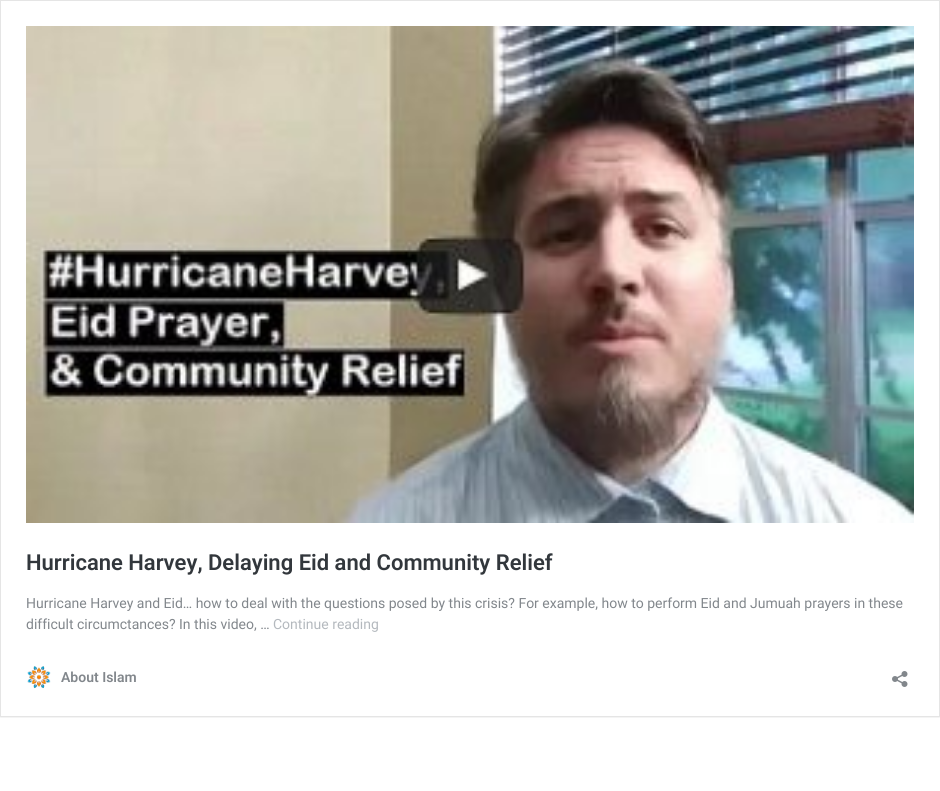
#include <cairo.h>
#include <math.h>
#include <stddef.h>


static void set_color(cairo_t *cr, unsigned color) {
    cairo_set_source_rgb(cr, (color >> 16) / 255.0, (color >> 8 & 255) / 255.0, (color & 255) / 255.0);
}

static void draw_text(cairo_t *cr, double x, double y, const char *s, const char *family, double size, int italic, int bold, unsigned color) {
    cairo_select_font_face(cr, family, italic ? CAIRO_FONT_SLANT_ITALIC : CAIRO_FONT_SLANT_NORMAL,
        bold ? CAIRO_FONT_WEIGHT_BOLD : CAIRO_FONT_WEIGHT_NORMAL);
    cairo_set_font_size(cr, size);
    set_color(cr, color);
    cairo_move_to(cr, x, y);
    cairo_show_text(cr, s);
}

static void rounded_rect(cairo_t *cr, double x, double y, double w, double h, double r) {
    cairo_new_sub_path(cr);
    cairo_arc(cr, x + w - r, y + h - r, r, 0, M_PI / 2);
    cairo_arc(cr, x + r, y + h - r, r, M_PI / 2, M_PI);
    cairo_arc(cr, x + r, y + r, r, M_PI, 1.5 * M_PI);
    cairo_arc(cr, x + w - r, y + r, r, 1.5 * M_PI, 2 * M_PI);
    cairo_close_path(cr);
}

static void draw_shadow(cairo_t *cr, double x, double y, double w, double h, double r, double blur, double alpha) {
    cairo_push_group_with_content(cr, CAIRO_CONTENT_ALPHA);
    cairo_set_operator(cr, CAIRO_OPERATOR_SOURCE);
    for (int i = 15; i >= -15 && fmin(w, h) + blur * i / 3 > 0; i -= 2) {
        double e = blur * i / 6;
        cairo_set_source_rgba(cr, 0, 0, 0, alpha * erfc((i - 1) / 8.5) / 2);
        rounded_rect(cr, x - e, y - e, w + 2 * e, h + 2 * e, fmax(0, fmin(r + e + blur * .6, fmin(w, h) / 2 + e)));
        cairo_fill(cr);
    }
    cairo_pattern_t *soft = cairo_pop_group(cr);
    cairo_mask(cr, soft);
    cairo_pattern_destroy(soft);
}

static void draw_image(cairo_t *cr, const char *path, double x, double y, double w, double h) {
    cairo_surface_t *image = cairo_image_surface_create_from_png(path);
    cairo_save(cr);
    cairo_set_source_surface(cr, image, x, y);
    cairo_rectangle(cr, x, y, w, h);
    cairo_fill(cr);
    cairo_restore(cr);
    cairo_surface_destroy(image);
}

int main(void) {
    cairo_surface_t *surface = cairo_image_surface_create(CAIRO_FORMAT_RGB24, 940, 791);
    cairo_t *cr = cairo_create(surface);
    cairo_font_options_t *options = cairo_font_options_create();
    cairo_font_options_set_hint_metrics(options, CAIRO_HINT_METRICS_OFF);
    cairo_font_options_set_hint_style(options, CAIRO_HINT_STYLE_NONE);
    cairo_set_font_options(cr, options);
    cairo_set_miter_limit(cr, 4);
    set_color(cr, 0xFFFFFF);
    cairo_paint(cr);
    cairo_save(cr);
    cairo_rectangle(cr, 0, 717, 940, 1);
    cairo_clip(cr);
    set_color(cr, 0x000000);
    draw_shadow(cr, 0, 1, 940, 717, 0, 0.5, 0.05);
    cairo_restore(cr);
    cairo_rectangle(cr, 0.5, 0.5, 939, 716);
    set_color(cr, 0xE5E5E5);
    cairo_set_line_width(cr, 1);
    cairo_stroke(cr);
    draw_image(cr, "assets/img1.png", 26, 26, 888, 497);
    draw_text(cr, 26, 570, "Hurricane Harvey, Delaying Eid and Community Relief", "Roboto SemiBold", 22, 0, 0, 0x32373C);
    draw_text(cr, 26, 608, "Hurricane Harvey and Eid… how to deal with the questions posed by this crisis? For example, how to perform Eid and Jumuah prayers in these", "Roboto", 14, 0, 0, 0x82878C);
    draw_text(cr, 26, 629, "difficult circumctances? In this video, …", "Roboto", 14, 0, 0, 0x82878C);
    draw_text(cr, 273, 629, "Continue reading", "Roboto", 14, 0, 0, 0xB4B9BE);
    draw_image(cr, "assets/img2.png", 27, 666, 24, 23);
    draw_text(cr, 61, 682, "About Islam", "Roboto SemiBold", 14, 0, 0, 0x82878C);
    draw_image(cr, "assets/img3.png", 892, 671, 16, 16);
    cairo_surface_write_to_png(surface, "output.png");
    cairo_font_options_destroy(options);
    cairo_destroy(cr);
    cairo_surface_destroy(surface);
    return 0;
}
